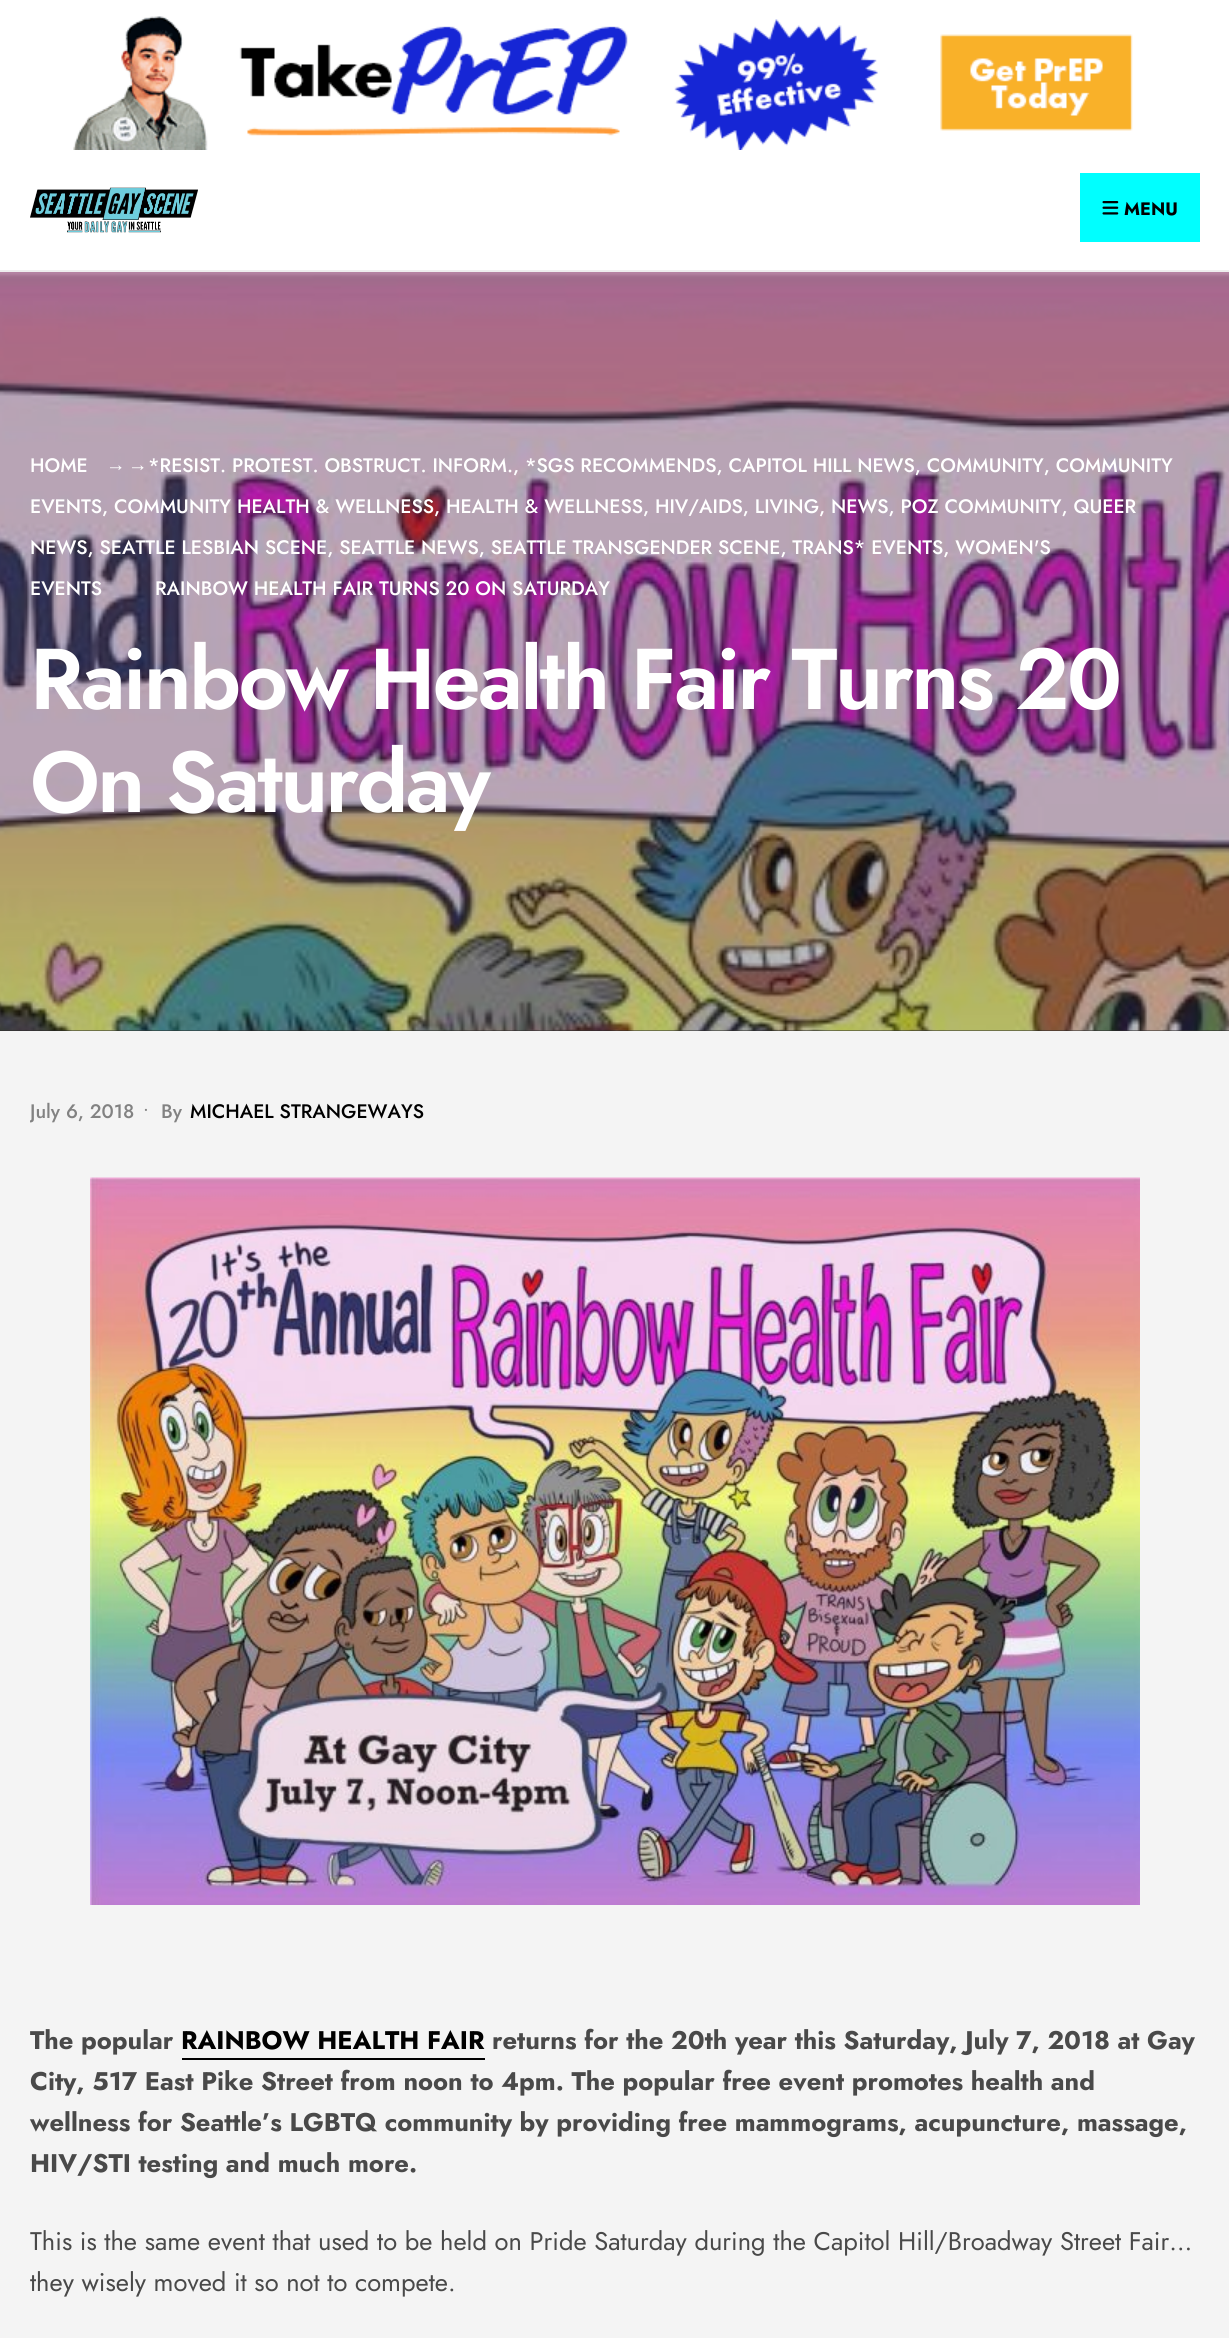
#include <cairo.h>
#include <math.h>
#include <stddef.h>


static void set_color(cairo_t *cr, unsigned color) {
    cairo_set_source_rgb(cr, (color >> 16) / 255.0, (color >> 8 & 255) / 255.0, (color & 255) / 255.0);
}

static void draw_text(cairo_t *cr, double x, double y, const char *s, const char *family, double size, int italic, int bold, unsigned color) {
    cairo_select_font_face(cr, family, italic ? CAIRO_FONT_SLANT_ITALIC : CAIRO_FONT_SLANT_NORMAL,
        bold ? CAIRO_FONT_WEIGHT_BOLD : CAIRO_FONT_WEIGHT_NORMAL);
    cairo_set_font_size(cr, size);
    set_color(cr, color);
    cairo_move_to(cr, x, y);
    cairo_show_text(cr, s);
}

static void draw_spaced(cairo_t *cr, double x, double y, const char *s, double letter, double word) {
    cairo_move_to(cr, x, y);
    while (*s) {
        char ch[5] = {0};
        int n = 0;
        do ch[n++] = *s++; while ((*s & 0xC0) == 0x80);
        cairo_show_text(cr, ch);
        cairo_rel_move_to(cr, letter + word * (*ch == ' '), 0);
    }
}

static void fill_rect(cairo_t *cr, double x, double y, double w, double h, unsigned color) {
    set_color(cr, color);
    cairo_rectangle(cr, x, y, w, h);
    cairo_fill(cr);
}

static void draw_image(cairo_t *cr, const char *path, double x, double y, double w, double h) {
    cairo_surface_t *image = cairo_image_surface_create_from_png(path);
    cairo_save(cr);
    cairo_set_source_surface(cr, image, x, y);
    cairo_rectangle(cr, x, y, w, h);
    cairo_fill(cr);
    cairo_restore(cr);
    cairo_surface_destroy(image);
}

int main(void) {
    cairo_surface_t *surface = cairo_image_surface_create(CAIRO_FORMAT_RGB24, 1229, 2338);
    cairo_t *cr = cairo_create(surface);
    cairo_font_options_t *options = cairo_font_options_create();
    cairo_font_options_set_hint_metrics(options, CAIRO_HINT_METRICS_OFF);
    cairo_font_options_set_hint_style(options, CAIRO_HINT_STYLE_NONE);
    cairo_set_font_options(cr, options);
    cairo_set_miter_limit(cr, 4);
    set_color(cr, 0xF4F4F4);
    cairo_paint(cr);
    fill_rect(cr, 0, 0, 1229, 270, 0xFFFFFF);
    fill_rect(cr, 0, 270, 1229, 2, 0xEEEEEE);
    draw_image(cr, "assets/img1.png", 73, 16, 1060, 134);
    draw_image(cr, "assets/img2.png", 30, 187, 168, 46);
    fill_rect(cr, 1080, 173, 120, 69, 0x00FFFF);
    draw_image(cr, "assets/img3.png", 1102, 201, 17, 14);
    draw_text(cr, 1124, 215, "MENU", "Jost", 18, 0, 1, 0x000000);
    fill_rect(cr, 0, 272, 1229, 759, 0x2B2B2B);
    draw_image(cr, "assets/img4.png", 0, 272, 1229, 759);
    draw_text(cr, 30, 472, "HOME", "Jost Medium", 19.5, 0, 0, 0xFFFFFF);
    draw_text(cr, 106, 471, "→", "Liberation Serif", 19.5, 0, 0, 0xFFFFFF);
    draw_text(cr, 128, 471, "→", "Liberation Serif", 19.5, 0, 0, 0xFFFFFF);
    draw_text(cr, 148, 472, "*RESIST. PROTEST. OBSTRUCT. INFORM., *SGS RECOMMENDS, CAPITOL HILL NEWS, COMMUNITY, COMMUNITY", "Jost Medium", 19.5, 0, 0, 0xFFFFFF);
    draw_text(cr, 30, 513, "EVENTS, COMMUNITY HEALTH & WELLNESS, HEALTH & WELLNESS, HIV/AIDS, LIVING, NEWS, POZ COMMUNITY, QUEER", "Jost Medium", 19.5, 0, 0, 0xFFFFFF);
    draw_text(cr, 30, 554, "NEWS, SEATTLE LESBIAN SCENE, SEATTLE NEWS, SEATTLE TRANSGENDER SCENE, TRANS* EVENTS, WOMEN'S", "Jost Medium", 19.5, 0, 0, 0xFFFFFF);
    draw_text(cr, 30, 595, "EVENTS", "Jost Medium", 19.5, 0, 0, 0xFFFFFF);
    draw_text(cr, 155, 595, "RAINBOW HEALTH FAIR TURNS 20 ON SATURDAY", "Jost Medium", 19.5, 0, 0, 0xFFFFFF);
    cairo_select_font_face(cr, "Jost SemiBold", CAIRO_FONT_SLANT_NORMAL, CAIRO_FONT_WEIGHT_NORMAL);
    cairo_set_font_size(cr, 86.1);
    draw_spaced(cr, 30, 709, "Rainbow Health Fair Turns 20", -2.6, 0);
    draw_spaced(cr, 30, 812, "On Saturday", -2.6, 0);
    cairo_save(cr);
    cairo_rectangle(cr, 30, 1097, 393, 31);
    cairo_clip(cr);
    draw_text(cr, 30, 1118, "July 6, 2018", "Jost Medium", 19.5, 0, 0, 0x828282);
    cairo_restore(cr);
    draw_text(cr, 143, 1118, "•", "Jost", 19.5, 0, 0, 0x828282);
    draw_text(cr, 161, 1118, "By", "Jost Medium", 19.5, 0, 0, 0x828282);
    draw_text(cr, 190, 1118, "MICHAEL STRANGEWAYS", "Jost Medium", 19.5, 0, 0, 0x000000);
    draw_image(cr, "assets/img5.png", 90, 1177, 1050, 728);
    draw_text(cr, 30, 2049, "The popular", "Jost", 25.5, 0, 1, 0x494949);
    draw_text(cr, 181, 2049, "RAINBOW HEALTH FAIR", "Jost", 25.5, 0, 1, 0x000000);
    fill_rect(cr, 182, 2058, 303, 2, 0x000000);
    draw_text(cr, 492, 2049, "returns for the 20th year this Saturday, July 7, 2018 at Gay", "Jost", 25.5, 0, 1, 0x494949);
    draw_text(cr, 30, 2090, "City, 517 East Pike Street from noon to 4pm. The popular free event promotes health and", "Jost", 25.5, 0, 1, 0x494949);
    draw_text(cr, 30, 2131, "wellness for Seattle’s LGBTQ community by providing free mammograms, acupuncture, massage,", "Jost", 25.5, 0, 1, 0x494949);
    draw_text(cr, 30, 2172, "HIV/STI testing and much more.", "Jost", 25.5, 0, 1, 0x494949);
    draw_text(cr, 30, 2250, "This is the same event that used to be held on Pride Saturday during the Capitol Hill/Broadway Street Fair…", "Jost", 25.5, 0, 0, 0x494949);
    draw_text(cr, 30, 2291, "they wisely moved it so not to compete.", "Jost", 25.5, 0, 0, 0x494949);
    cairo_surface_write_to_png(surface, "output.png");
    cairo_font_options_destroy(options);
    cairo_destroy(cr);
    cairo_surface_destroy(surface);
    return 0;
}
